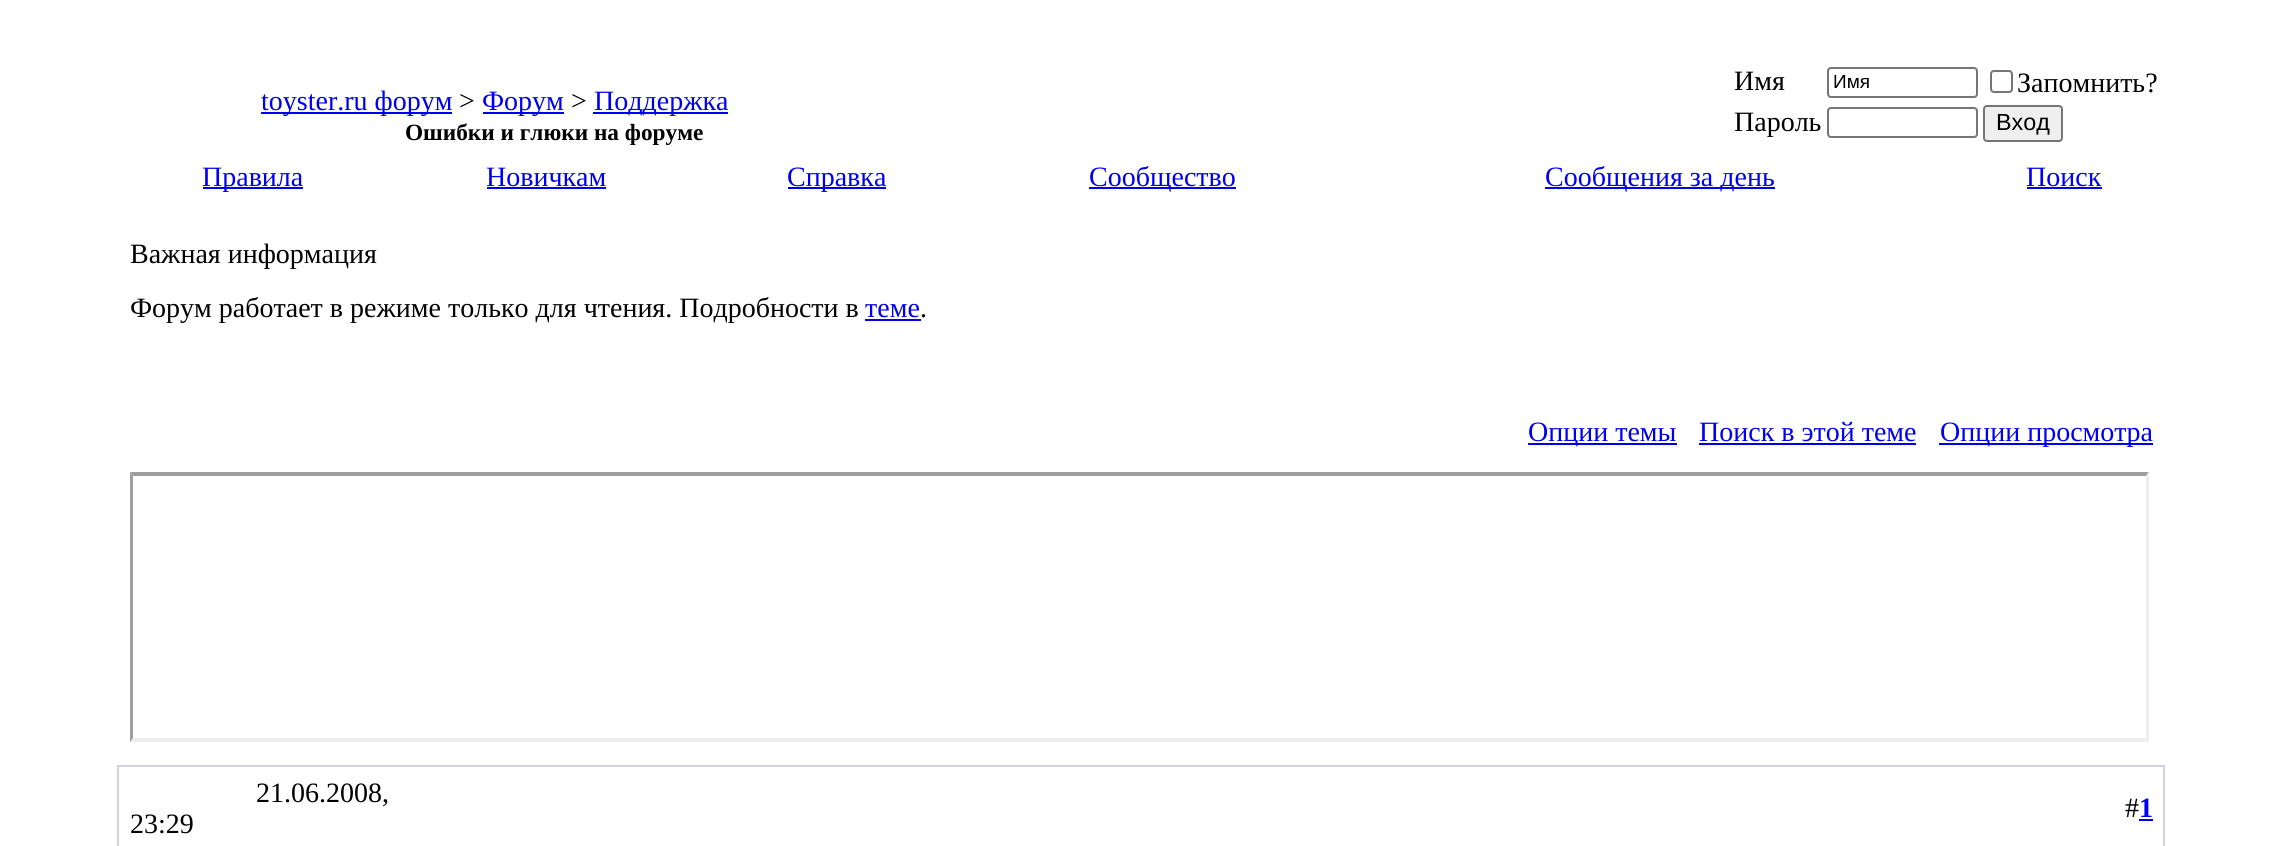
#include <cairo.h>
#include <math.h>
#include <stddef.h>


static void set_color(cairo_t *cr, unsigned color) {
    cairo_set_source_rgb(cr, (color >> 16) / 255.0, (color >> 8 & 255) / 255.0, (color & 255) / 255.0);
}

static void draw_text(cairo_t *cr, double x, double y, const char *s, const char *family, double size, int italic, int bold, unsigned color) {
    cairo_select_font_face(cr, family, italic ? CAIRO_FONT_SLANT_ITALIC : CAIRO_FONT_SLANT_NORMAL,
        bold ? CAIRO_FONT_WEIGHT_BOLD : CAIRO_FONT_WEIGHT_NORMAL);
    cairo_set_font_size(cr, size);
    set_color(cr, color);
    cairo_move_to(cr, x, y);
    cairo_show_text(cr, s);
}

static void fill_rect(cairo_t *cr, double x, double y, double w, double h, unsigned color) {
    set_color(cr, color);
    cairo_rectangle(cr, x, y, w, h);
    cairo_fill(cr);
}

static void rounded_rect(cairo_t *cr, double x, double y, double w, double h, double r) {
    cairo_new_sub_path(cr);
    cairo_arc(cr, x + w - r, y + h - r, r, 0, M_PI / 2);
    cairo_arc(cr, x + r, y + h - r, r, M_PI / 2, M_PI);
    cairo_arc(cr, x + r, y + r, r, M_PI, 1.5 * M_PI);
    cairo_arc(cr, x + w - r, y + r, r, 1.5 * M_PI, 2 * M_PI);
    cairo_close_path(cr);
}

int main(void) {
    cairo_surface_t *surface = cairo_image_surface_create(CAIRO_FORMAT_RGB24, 2281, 846);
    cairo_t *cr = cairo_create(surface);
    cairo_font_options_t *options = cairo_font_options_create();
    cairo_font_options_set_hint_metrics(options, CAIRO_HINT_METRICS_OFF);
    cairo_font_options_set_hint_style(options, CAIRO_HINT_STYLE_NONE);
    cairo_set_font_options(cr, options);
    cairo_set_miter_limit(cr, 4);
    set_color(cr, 0xFFFFFF);
    cairo_paint(cr);
    fill_rect(cr, 261, 112, 191, 2, 0x0000EE);
    draw_text(cr, 261, 110, "toyster.ru форум", "Liberation Serif", 28, 0, 0, 0x0000EE);
    draw_text(cr, 459, 110, ">", "Liberation Serif", 28, 0, 0, 0x000000);
    fill_rect(cr, 483, 112, 81, 2, 0x0000EE);
    draw_text(cr, 482, 110, "Форум", "Liberation Serif", 28, 0, 0, 0x0000EE);
    draw_text(cr, 571, 110, ">", "Liberation Serif", 28, 0, 0, 0x000000);
    fill_rect(cr, 593, 112, 135, 2, 0x0000EE);
    draw_text(cr, 594, 110, "Поддержка", "Liberation Serif", 28, 0, 0, 0x0000EE);
    draw_text(cr, 405, 140, "Ошибки и глюки на форуме", "Liberation Serif", 23.3, 0, 1, 0x000000);
    draw_text(cr, 1734, 90, "Имя", "Liberation Serif", 28, 0, 0, 0x000000);
    rounded_rect(cr, 1828, 68, 149, 29, 3);
    set_color(cr, 0x767676);
    cairo_stroke(cr);
    draw_text(cr, 1833, 88, "Имя", "Liberation Sans", 19, 0, 0, 0x000000);
    rounded_rect(cr, 1991, 71, 21, 21, 3);
    set_color(cr, 0x767676);
    cairo_stroke(cr);
    draw_text(cr, 2017, 92, "Запомнить?", "Liberation Serif", 28, 0, 0, 0x000000);
    draw_text(cr, 1734, 131, "Пароль", "Liberation Serif", 28, 0, 0, 0x000000);
    rounded_rect(cr, 1828, 108, 149, 29, 3);
    set_color(cr, 0x767676);
    cairo_stroke(cr);
    set_color(cr, 0xEFEFEF);
    rounded_rect(cr, 1984, 106, 78, 35, 3);
    cairo_fill_preserve(cr);
    set_color(cr, 0x767676);
    cairo_stroke(cr);
    draw_text(cr, 1996, 130, "Вход", "Liberation Sans", 23.3, 0, 0, 0x000000);
    fill_rect(cr, 203, 187, 100, 2, 0x0000EE);
    draw_text(cr, 202, 186, "Правила", "Liberation Serif", 28, 0, 0, 0x0000EE);
    draw_text(cr, 486, 186, "Новичкам", "Liberation Serif", 28, 0, 0, 0x0000EE);
    fill_rect(cr, 487, 187, 119, 2, 0x0000EE);
    fill_rect(cr, 788, 187, 98, 2, 0x0000EE);
    draw_text(cr, 787, 186, "Справка", "Liberation Serif", 28, 0, 0, 0x0000EE);
    fill_rect(cr, 1089, 187, 147, 2, 0x0000EE);
    draw_text(cr, 1089, 186, "Сообщество", "Liberation Serif", 28, 0, 0, 0x0000EE);
    fill_rect(cr, 1545, 187, 230, 2, 0x0000EE);
    draw_text(cr, 1545, 186, "Сообщения за день", "Liberation Serif", 28, 0, 0, 0x0000EE);
    draw_text(cr, 2026, 186, "Поиск", "Liberation Serif", 28, 0, 0, 0x0000EE);
    fill_rect(cr, 2027, 187, 75, 2, 0x0000EE);
    draw_text(cr, 130, 263, "Важная информация", "Liberation Serif", 28, 0, 0, 0x000000);
    draw_text(cr, 130, 317, "Форум работает в режиме только для чтения. Подробности в", "Liberation Serif", 28, 0, 0, 0x000000);
    draw_text(cr, 865, 317, "теме", "Liberation Serif", 28, 0, 0, 0x0000EE);
    fill_rect(cr, 865, 319, 56, 2, 0x0000EE);
    draw_text(cr, 920, 317, ".", "Liberation Serif", 28, 0, 0, 0x000000);
    fill_rect(cr, 1528, 443, 149, 2, 0x0000EE);
    draw_text(cr, 1528, 441, "Опции темы", "Liberation Serif", 28, 0, 0, 0x0000EE);
    draw_text(cr, 1699, 441, "Поиск в этой теме", "Liberation Serif", 28, 0, 0, 0x0000EE);
    fill_rect(cr, 1699, 443, 217, 2, 0x0000EE);
    fill_rect(cr, 1939, 443, 214, 2, 0x0000EE);
    draw_text(cr, 1940, 441, "Опции просмотра", "Liberation Serif", 28, 0, 0, 0x0000EE);
    set_color(cr, 0x9F9F9F);
    cairo_new_path(cr);
    cairo_move_to(cr, 130, 472);
    cairo_line_to(cr, 2149, 472);
    cairo_line_to(cr, 2146, 476);
    cairo_line_to(cr, 133, 476);
    cairo_close_path(cr);
    cairo_fill(cr);
    set_color(cr, 0xEEEEEE);
    cairo_new_path(cr);
    cairo_move_to(cr, 2149, 472);
    cairo_line_to(cr, 2149, 742);
    cairo_line_to(cr, 2146, 738);
    cairo_line_to(cr, 2146, 476);
    cairo_close_path(cr);
    cairo_fill(cr);
    cairo_new_path(cr);
    cairo_move_to(cr, 2149, 742);
    cairo_line_to(cr, 130, 742);
    cairo_line_to(cr, 133, 738);
    cairo_line_to(cr, 2146, 738);
    cairo_close_path(cr);
    cairo_fill(cr);
    set_color(cr, 0x9F9F9F);
    cairo_new_path(cr);
    cairo_move_to(cr, 130, 742);
    cairo_line_to(cr, 130, 472);
    cairo_line_to(cr, 133, 476);
    cairo_line_to(cr, 133, 738);
    cairo_close_path(cr);
    cairo_fill(cr);
    fill_rect(cr, 117, 765, 2048, 2, 0xD1D1E1);
    fill_rect(cr, 117, 765, 2, 81, 0xD1D1E1);
    draw_text(cr, 256, 802, "21.06.2008,", "Liberation Serif", 28, 0, 0, 0x000000);
    draw_text(cr, 130, 833, "23:29", "Liberation Serif", 28, 0, 0, 0x000000);
    fill_rect(cr, 2163, 765, 2, 81, 0xD1D1E1);
    draw_text(cr, 2125, 817, "#", "Liberation Serif", 28, 0, 0, 0x000000);
    draw_text(cr, 2139, 817, "1", "Liberation Serif", 28, 0, 1, 0x0000EE);
    fill_rect(cr, 2139, 819, 14, 2, 0x0000EE);
    cairo_surface_write_to_png(surface, "output.png");
    cairo_font_options_destroy(options);
    cairo_destroy(cr);
    cairo_surface_destroy(surface);
    return 0;
}
